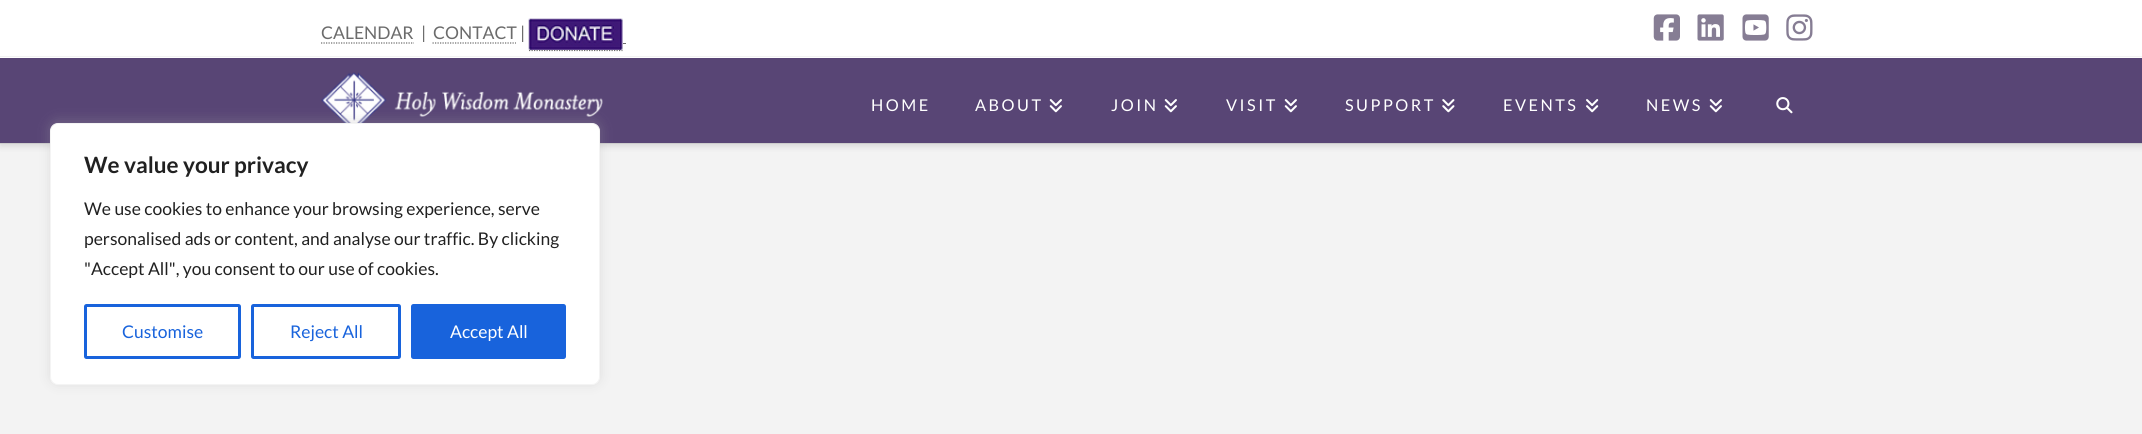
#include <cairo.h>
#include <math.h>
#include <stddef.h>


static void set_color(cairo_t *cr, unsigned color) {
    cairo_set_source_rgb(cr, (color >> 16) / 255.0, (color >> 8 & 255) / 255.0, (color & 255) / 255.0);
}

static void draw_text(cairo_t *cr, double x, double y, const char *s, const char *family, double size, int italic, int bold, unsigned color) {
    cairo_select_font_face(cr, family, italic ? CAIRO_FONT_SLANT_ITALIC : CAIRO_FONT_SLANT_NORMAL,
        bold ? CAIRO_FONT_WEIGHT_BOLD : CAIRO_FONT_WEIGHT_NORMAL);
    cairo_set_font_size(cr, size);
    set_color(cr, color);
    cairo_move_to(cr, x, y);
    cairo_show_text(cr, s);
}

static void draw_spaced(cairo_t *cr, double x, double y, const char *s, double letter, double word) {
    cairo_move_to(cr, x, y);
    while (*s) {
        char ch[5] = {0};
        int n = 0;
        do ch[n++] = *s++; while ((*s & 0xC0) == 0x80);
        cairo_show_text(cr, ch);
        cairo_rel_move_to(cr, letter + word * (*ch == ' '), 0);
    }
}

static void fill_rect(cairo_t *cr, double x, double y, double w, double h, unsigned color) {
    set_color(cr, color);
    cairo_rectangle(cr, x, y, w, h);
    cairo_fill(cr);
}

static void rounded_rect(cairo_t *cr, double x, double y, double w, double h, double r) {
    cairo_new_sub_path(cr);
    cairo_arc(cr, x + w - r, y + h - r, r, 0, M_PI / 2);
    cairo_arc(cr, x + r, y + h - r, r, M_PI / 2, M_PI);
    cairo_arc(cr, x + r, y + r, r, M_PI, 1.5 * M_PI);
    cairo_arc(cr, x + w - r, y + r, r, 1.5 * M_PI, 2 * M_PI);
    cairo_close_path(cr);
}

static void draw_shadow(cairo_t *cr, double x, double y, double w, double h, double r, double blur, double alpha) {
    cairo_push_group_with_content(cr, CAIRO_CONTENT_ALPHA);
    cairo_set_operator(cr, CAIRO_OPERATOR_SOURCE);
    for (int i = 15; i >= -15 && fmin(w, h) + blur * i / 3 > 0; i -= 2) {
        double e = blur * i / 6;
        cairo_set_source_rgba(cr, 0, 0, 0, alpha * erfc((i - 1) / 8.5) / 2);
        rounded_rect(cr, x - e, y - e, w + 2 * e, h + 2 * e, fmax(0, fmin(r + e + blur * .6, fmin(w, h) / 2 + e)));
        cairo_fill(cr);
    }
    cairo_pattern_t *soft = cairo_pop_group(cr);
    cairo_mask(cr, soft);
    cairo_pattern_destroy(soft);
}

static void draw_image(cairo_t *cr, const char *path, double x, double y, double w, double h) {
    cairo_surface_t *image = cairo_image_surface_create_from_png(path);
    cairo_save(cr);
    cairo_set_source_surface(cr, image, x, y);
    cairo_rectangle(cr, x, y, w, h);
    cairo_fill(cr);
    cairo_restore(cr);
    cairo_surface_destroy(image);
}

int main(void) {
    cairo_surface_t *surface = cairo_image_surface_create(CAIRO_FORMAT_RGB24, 2142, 434);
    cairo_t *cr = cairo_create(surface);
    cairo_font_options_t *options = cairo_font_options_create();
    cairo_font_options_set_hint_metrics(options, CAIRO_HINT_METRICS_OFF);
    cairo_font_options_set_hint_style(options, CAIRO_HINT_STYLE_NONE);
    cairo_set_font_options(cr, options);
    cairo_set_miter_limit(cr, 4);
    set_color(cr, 0xF3F3F3);
    cairo_paint(cr);
    set_color(cr, 0x000000);
    draw_shadow(cr, 0, 60, 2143, 86, 0, 3.5, 0.13);
    fill_rect(cr, 0, 0, 2142, 58, 0xFFFFFF);
    fill_rect(cr, 0, 56, 2142, 1, 0xF2F2F2);
    draw_text(cr, 321, 39, "CALENDAR", "Lato", 17.5, 0, 0, 0x6B6B6B);
    cairo_new_path(cr);
    cairo_move_to(cr, 321, 43);
    cairo_line_to(cr, 414, 43);
    cairo_set_line_width(cr, 1.2);
    cairo_set_dash(cr, (double[]){1.25, 1.25}, 2, 0);
    cairo_stroke(cr);
    draw_text(cr, 421, 39, "|", "Lato", 17.5, 0, 0, 0x6B6B6B);
    draw_text(cr, 433, 39, "CONTACT |", "Lato", 17.5, 0, 0, 0x6B6B6B);
    cairo_new_path(cr);
    cairo_move_to(cr, 432.5, 43);
    cairo_line_to(cr, 516, 43);
    cairo_stroke(cr);
    cairo_new_path(cr);
    cairo_move_to(cr, 529, 50.5);
    cairo_line_to(cr, 622.5, 50.5);
    cairo_stroke(cr);
    draw_image(cr, "assets/img1.png", 528, 18, 95, 32);
    fill_rect(cr, 623, 43, 3, 1, 0x6B6B6B);
    draw_image(cr, "assets/img2.png", 1653, 14, 27, 27);
    draw_image(cr, "assets/img3.png", 1697, 14, 27, 27);
    draw_image(cr, "assets/img4.png", 1742, 14, 27, 27);
    draw_image(cr, "assets/img5.png", 1786, 14, 27, 27);
    fill_rect(cr, 0, 143, 2142, 1, 0xCCCCCC);
    fill_rect(cr, 0, 58, 2142, 85, 0x584575);
    draw_image(cr, "assets/img6.png", 321, 72, 282, 51);
    cairo_set_font_size(cr, 16.25);
    set_color(cr, 0xFFFFFF);
    draw_spaced(cr, 871, 111, "HOME", 2.5, 0);
    draw_spaced(cr, 975, 111, "ABOUT", 2.5, 0);
    draw_image(cr, "assets/img7.png", 1049, 99, 13, 14);
    draw_spaced(cr, 1111, 111, "JOIN", 2.5, 0);
    draw_image(cr, "assets/img7.png", 1164, 99, 13, 14);
    draw_spaced(cr, 1226, 111, "VISIT", 2.5, 0);
    draw_image(cr, "assets/img7.png", 1284, 99, 13, 14);
    draw_spaced(cr, 1345, 111, "SUPPORT", 2.5, 0);
    draw_image(cr, "assets/img8.png", 1442, 99, 13, 14);
    draw_spaced(cr, 1503, 111, "EVENTS", 2.5, 0);
    draw_image(cr, "assets/img9.png", 1586, 99, 13, 14);
    draw_spaced(cr, 1646, 111, "NEWS", 2.5, 0);
    draw_image(cr, "assets/img7.png", 1709, 99, 13, 14);
    draw_image(cr, "assets/img10.png", 1776, 97, 17, 17);
    set_color(cr, 0xACABAB);
    draw_shadow(cr, 50, 121, 550, 263, 8, 6, 0.3);
    set_color(cr, 0xFFFFFF);
    rounded_rect(cr, 50.5, 123.5, 549, 261, 7.5);
    cairo_fill_preserve(cr);
    set_color(cr, 0xF4F4F4);
    cairo_set_line_width(cr, 1);
    cairo_set_dash(cr, NULL, 0, 0);
    cairo_stroke(cr);
    draw_text(cr, 84, 173, "We value your privacy", "Lato", 22.5, 0, 1, 0x212121);
    draw_text(cr, 84, 215, "We use cookies to enhance your browsing experience, serve", "Lato", 17.5, 0, 0, 0x212121);
    draw_text(cr, 84, 245, "personalised ads or content, and analyse our traffic. By clicking", "Lato", 17.5, 0, 0, 0x212121);
    draw_text(cr, 84, 275, "\"Accept All\", you consent to our use of cookies.", "Lato", 17.5, 0, 0, 0x212121);
    rounded_rect(cr, 85.5, 305.5, 154, 52, 1);
    set_color(cr, 0x1863DC);
    cairo_set_line_width(cr, 3);
    cairo_stroke(cr);
    draw_text(cr, 122, 338, "Customise", "Lato", 17.5, 0, 0, 0x1863DC);
    rounded_rect(cr, 252.5, 305.5, 147, 52, 1);
    cairo_stroke(cr);
    draw_text(cr, 290, 338, "Reject All", "Lato", 17.5, 0, 0, 0x1863DC);
    rounded_rect(cr, 412.5, 305.5, 152, 52, 1);
    cairo_fill_preserve(cr);
    cairo_stroke(cr);
    draw_text(cr, 450, 338, "Accept All", "Lato", 17.5, 0, 0, 0xFFFFFF);
    cairo_surface_write_to_png(surface, "output.png");
    cairo_font_options_destroy(options);
    cairo_destroy(cr);
    cairo_surface_destroy(surface);
    return 0;
}
